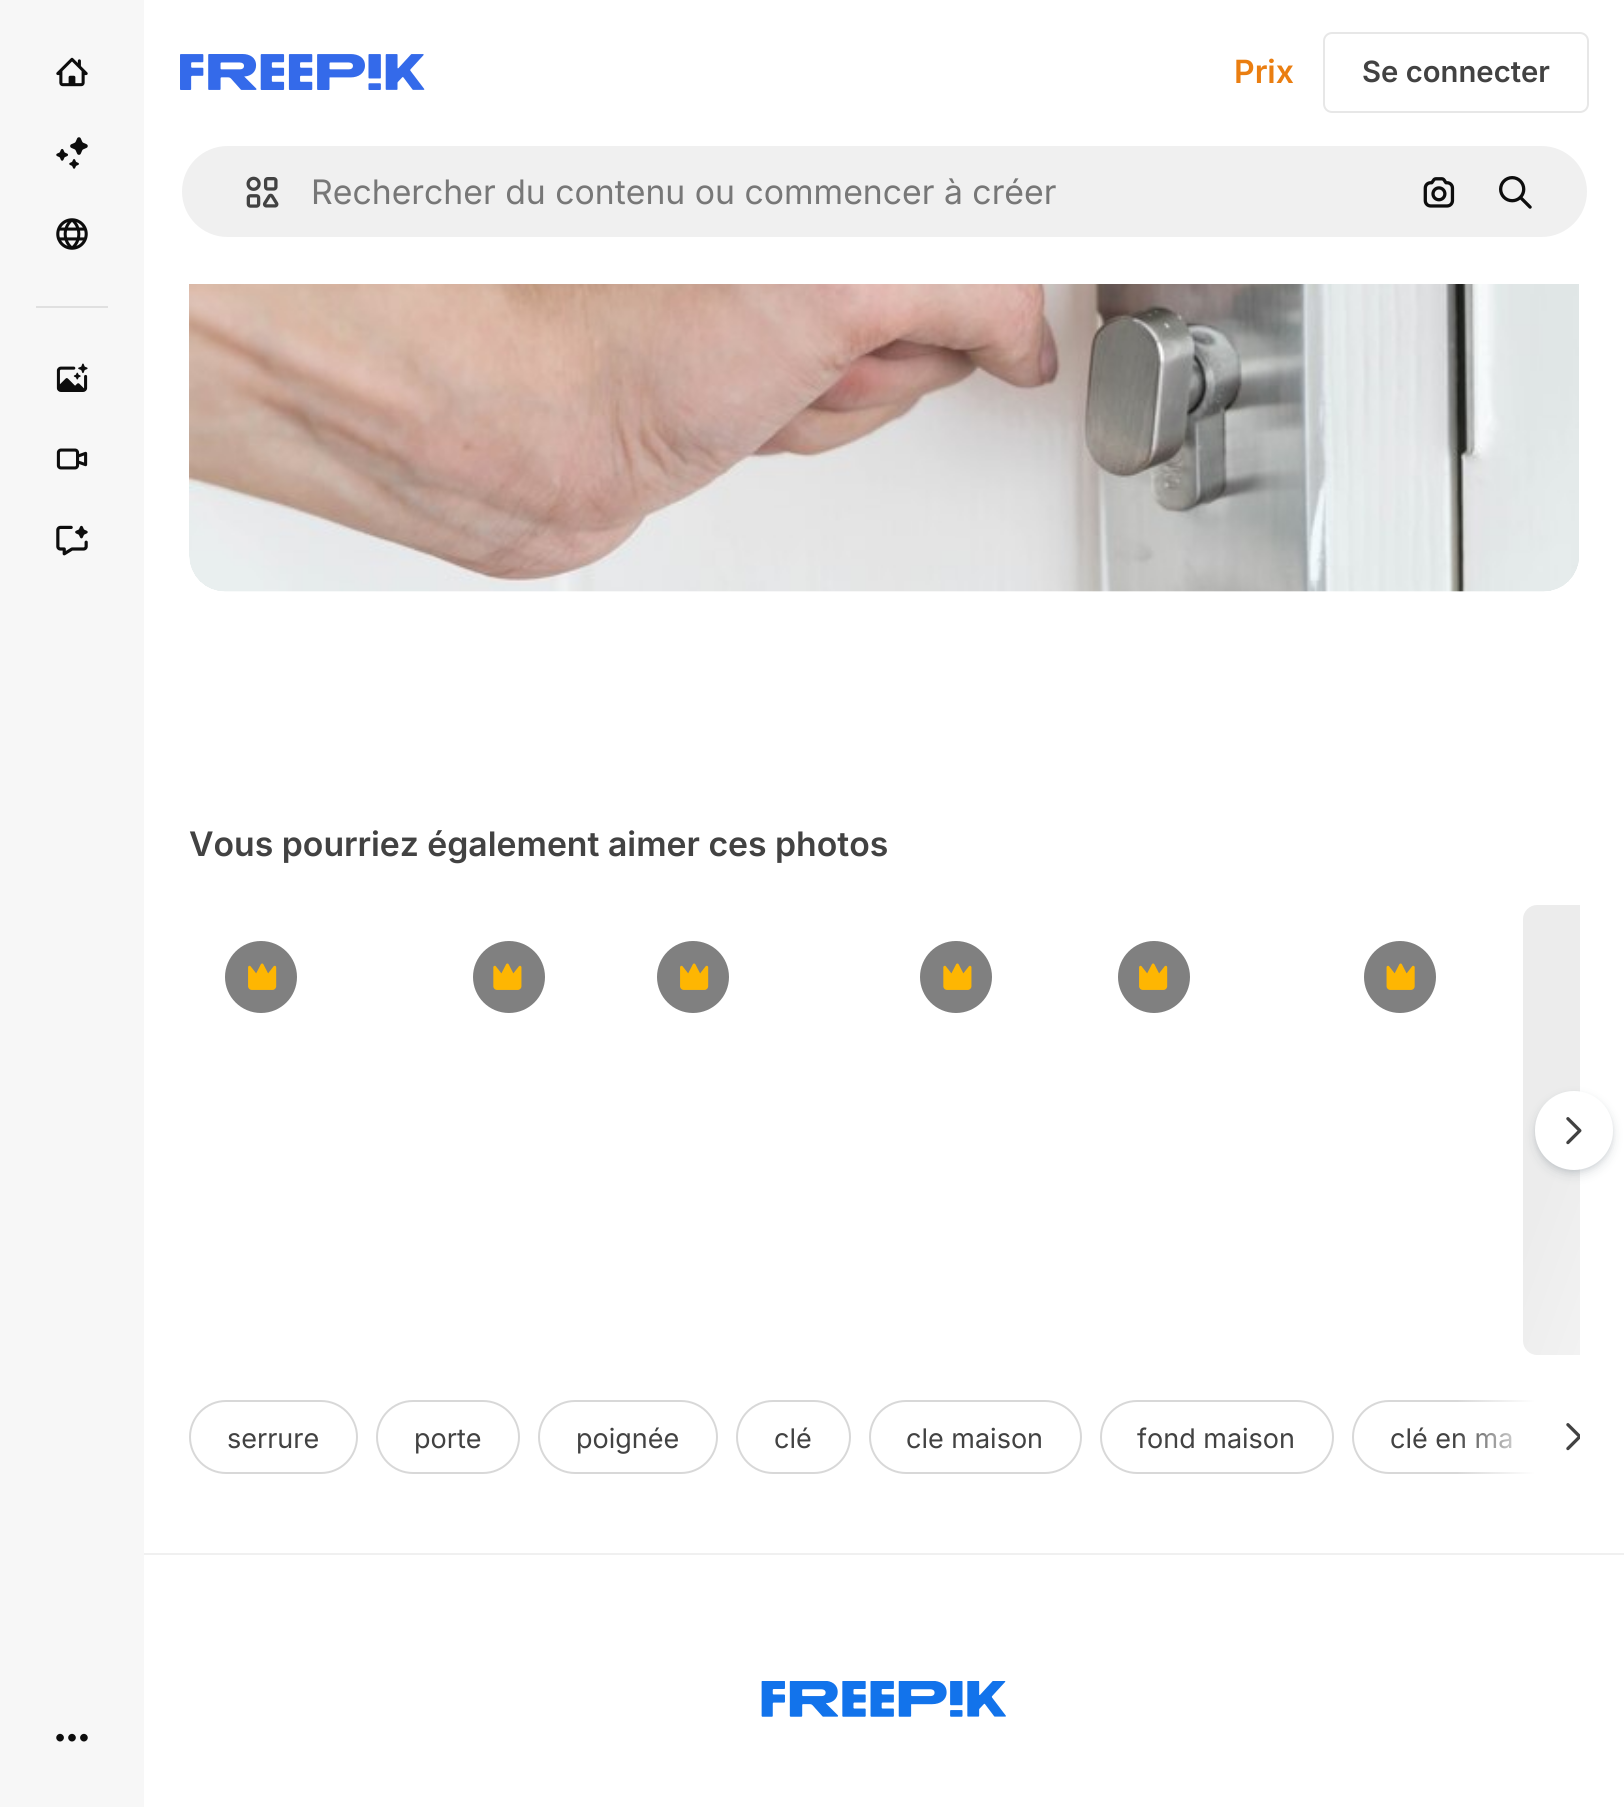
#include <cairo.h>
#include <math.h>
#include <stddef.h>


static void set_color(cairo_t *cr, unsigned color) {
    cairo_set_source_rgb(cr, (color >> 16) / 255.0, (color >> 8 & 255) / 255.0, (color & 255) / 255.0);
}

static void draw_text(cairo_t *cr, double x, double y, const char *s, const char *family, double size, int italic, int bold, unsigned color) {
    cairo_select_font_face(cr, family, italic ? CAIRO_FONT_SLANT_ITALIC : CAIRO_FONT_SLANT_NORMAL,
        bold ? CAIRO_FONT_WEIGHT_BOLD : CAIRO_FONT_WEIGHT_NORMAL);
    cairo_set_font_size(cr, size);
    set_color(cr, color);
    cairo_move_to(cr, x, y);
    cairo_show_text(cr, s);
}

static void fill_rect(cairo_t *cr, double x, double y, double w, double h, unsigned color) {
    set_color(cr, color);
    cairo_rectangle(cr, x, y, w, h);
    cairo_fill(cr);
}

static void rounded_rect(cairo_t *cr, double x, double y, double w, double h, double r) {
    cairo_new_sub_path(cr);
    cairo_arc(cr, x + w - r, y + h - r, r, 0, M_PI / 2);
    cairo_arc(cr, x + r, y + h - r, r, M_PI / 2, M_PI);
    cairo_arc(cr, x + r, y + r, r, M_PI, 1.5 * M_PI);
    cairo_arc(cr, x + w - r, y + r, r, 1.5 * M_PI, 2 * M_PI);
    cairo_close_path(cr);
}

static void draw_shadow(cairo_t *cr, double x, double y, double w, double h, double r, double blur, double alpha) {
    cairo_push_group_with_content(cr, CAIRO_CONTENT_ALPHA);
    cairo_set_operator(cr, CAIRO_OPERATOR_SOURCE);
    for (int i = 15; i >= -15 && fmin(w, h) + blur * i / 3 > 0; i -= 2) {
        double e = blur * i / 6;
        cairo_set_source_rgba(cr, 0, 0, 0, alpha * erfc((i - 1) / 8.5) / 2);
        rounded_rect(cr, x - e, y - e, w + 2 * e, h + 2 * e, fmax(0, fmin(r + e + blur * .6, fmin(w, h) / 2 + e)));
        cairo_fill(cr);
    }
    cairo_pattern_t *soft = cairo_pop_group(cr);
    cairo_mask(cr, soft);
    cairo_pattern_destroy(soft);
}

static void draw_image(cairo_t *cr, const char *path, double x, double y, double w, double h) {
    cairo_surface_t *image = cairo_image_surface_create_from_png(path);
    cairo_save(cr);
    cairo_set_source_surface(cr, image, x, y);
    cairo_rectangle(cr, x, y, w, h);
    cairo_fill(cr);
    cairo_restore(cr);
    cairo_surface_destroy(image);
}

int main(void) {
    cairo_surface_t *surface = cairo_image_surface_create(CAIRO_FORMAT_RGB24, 1624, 1807);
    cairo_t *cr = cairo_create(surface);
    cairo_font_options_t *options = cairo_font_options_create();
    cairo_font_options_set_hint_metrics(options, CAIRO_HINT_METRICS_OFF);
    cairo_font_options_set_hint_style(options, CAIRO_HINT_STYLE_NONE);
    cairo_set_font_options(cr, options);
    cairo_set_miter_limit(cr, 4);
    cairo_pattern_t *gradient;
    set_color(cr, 0xFFFFFF);
    cairo_paint(cr);
    fill_rect(cr, 0, 0, 144, 1807, 0xF7F7F7);
    draw_image(cr, "assets/img1.png", 56, 57, 32, 30);
    draw_image(cr, "assets/img2.png", 56, 137, 32, 32);
    draw_image(cr, "assets/img3.png", 56, 218, 32, 32);
    fill_rect(cr, 36, 306, 72, 2, 0xE0E0E0);
    draw_image(cr, "assets/img4.png", 56, 363, 32, 29);
    draw_image(cr, "assets/img5.png", 56, 448, 32, 22);
    draw_image(cr, "assets/img6.png", 56, 525, 32, 31);
    draw_image(cr, "assets/img7.png", 56, 1733, 32, 9);
    draw_image(cr, "assets/img8.png", 180, 54, 245, 36);
    draw_text(cr, 1234, 83, "Prix", "Inter SemiBold", 32, 0, 0, 0xEA7E11);
    rounded_rect(cr, 1324, 33, 264, 79, 8);
    set_color(cr, 0xE7E7E7);
    cairo_stroke(cr);
    draw_text(cr, 1362, 82, "Se connecter", "Inter SemiBold", 29.25, 0, 0, 0x424242);
    set_color(cr, 0xF0F0F0);
    rounded_rect(cr, 181, 145, 1407, 93, 46.5);
    cairo_fill_preserve(cr);
    set_color(cr, 0xFFFFFF);
    cairo_stroke(cr);
    draw_image(cr, "assets/img9.png", 246, 176, 33, 32);
    draw_text(cr, 311, 204, "Rechercher du contenu ou commencer à créer", "Inter", 33.75, 0, 0, 0x777777);
    draw_image(cr, "assets/img10.png", 1423, 177, 32, 31);
    draw_image(cr, "assets/img11.png", 1499, 176, 33, 33);
    draw_image(cr, "assets/img12.png", 189, 284, 1390, 308);
    draw_text(cr, 189, 856, "Vous pourriez également aimer ces photos", "Inter SemiBold", 33.75, 0, 0, 0x424242);
    set_color(cr, 0x808080);
    cairo_new_path(cr);
    cairo_arc(cr, 261, 977, 36, 0, 2 * M_PI);
    cairo_fill(cr);
    draw_image(cr, "assets/img13.png", 248, 963, 29, 27);
    cairo_arc(cr, 509, 977, 36, 0, 2 * M_PI);
    cairo_fill(cr);
    draw_image(cr, "assets/img14.png", 493, 963, 29, 27);
    cairo_arc(cr, 693, 977, 36, 0, 2 * M_PI);
    cairo_fill(cr);
    draw_image(cr, "assets/img13.png", 680, 963, 29, 27);
    cairo_arc(cr, 956, 977, 36, 0, 2 * M_PI);
    cairo_fill(cr);
    draw_image(cr, "assets/img14.png", 943, 963, 29, 27);
    cairo_arc(cr, 1154, 977, 36, 0, 2 * M_PI);
    cairo_fill(cr);
    draw_image(cr, "assets/img13.png", 1139, 963, 29, 27);
    cairo_arc(cr, 1400, 977, 36, 0, 2 * M_PI);
    cairo_fill(cr);
    draw_image(cr, "assets/img15.png", 1386, 963, 29, 27);
    gradient = cairo_pattern_create_linear(1530, 886, 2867, 1373);
    cairo_pattern_add_color_stop_rgba(gradient, 0.08, 0.925, 0.925, 0.925, 1);
    cairo_pattern_add_color_stop_rgba(gradient, 0.18, 0.961, 0.961, 0.961, 1);
    cairo_pattern_add_color_stop_rgba(gradient, 0.33, 0.925, 0.925, 0.925, 1);
    cairo_set_source(cr, gradient);
    cairo_pattern_destroy(gradient);
    cairo_new_path(cr);
    cairo_move_to(cr, 1537, 905);
    cairo_line_to(cr, 1580, 905);
    cairo_line_to(cr, 1580, 1355);
    cairo_line_to(cr, 1537, 1355);
    cairo_curve_to(cr, 1529.5, 1355, 1523, 1348.5, 1523, 1341);
    cairo_line_to(cr, 1523, 919);
    cairo_curve_to(cr, 1523, 911.5, 1529.5, 905, 1537, 905);
    cairo_close_path(cr);
    cairo_fill(cr);
    set_color(cr, 0x374957);
    draw_shadow(cr, 1535, 1096, 78, 79, 39, 5.5, 0.15);
    draw_shadow(cr, 1535, 1094, 78, 78, 39, 2, 0.1);
    set_color(cr, 0xFFFFFF);
    rounded_rect(cr, 1535, 1091, 78, 79, 39);
    cairo_fill(cr);
    draw_image(cr, "assets/img16.png", 1566, 1117, 16, 28);
    rounded_rect(cr, 190, 1401, 167, 72, 36);
    set_color(cr, 0xD8D8D8);
    cairo_stroke(cr);
    draw_text(cr, 227, 1448, "serrure", "Inter", 27, 0, 0, 0x424242);
    rounded_rect(cr, 377, 1401, 142, 72, 36);
    set_color(cr, 0xD8D8D8);
    cairo_stroke(cr);
    draw_text(cr, 414, 1448, "porte", "Inter", 27, 0, 0, 0x424242);
    rounded_rect(cr, 539, 1401, 178, 72, 36);
    set_color(cr, 0xD8D8D8);
    cairo_stroke(cr);
    draw_text(cr, 576, 1448, "poignée", "Inter", 27, 0, 0, 0x424242);
    rounded_rect(cr, 737, 1401, 113, 72, 36);
    set_color(cr, 0xD8D8D8);
    cairo_stroke(cr);
    draw_text(cr, 774, 1448, "clé", "Inter", 27, 0, 0, 0x424242);
    rounded_rect(cr, 870, 1401, 211, 72, 36);
    set_color(cr, 0xD8D8D8);
    cairo_stroke(cr);
    draw_text(cr, 906, 1448, "cle maison", "Inter", 27, 0, 0, 0x424242);
    rounded_rect(cr, 1101, 1401, 232, 72, 36);
    set_color(cr, 0xD8D8D8);
    cairo_stroke(cr);
    draw_text(cr, 1137, 1448, "fond maison", "Inter", 27, 0, 0, 0x424242);
    rounded_rect(cr, 1353, 1401, 221, 72, 36);
    set_color(cr, 0xD8D8D8);
    cairo_stroke(cr);
    draw_text(cr, 1390, 1448, "clé en ma", "Inter", 27, 0, 0, 0x424242);
    fill_rect(cr, 1535, 1400, 40, 74, 0xFFFFFF);
    gradient = cairo_pattern_create_linear(1535, 1437, 1456, 1437);
    cairo_pattern_add_color_stop_rgba(gradient, 0, 1, 1, 1, 1);
    cairo_pattern_add_color_stop_rgba(gradient, 1, 1, 1, 1, 0);
    cairo_set_source(cr, gradient);
    cairo_pattern_destroy(gradient);
    cairo_rectangle(cr, 1458, 1400, 77, 74);
    cairo_fill(cr);
    draw_image(cr, "assets/img17.png", 1566, 1423, 14, 28);
    fill_rect(cr, 144, 1553, 1480, 2, 0xF0F0F0);
    draw_image(cr, "assets/img18.png", 761, 1681, 245, 36);
    cairo_surface_write_to_png(surface, "output.png");
    cairo_font_options_destroy(options);
    cairo_destroy(cr);
    cairo_surface_destroy(surface);
    return 0;
}
